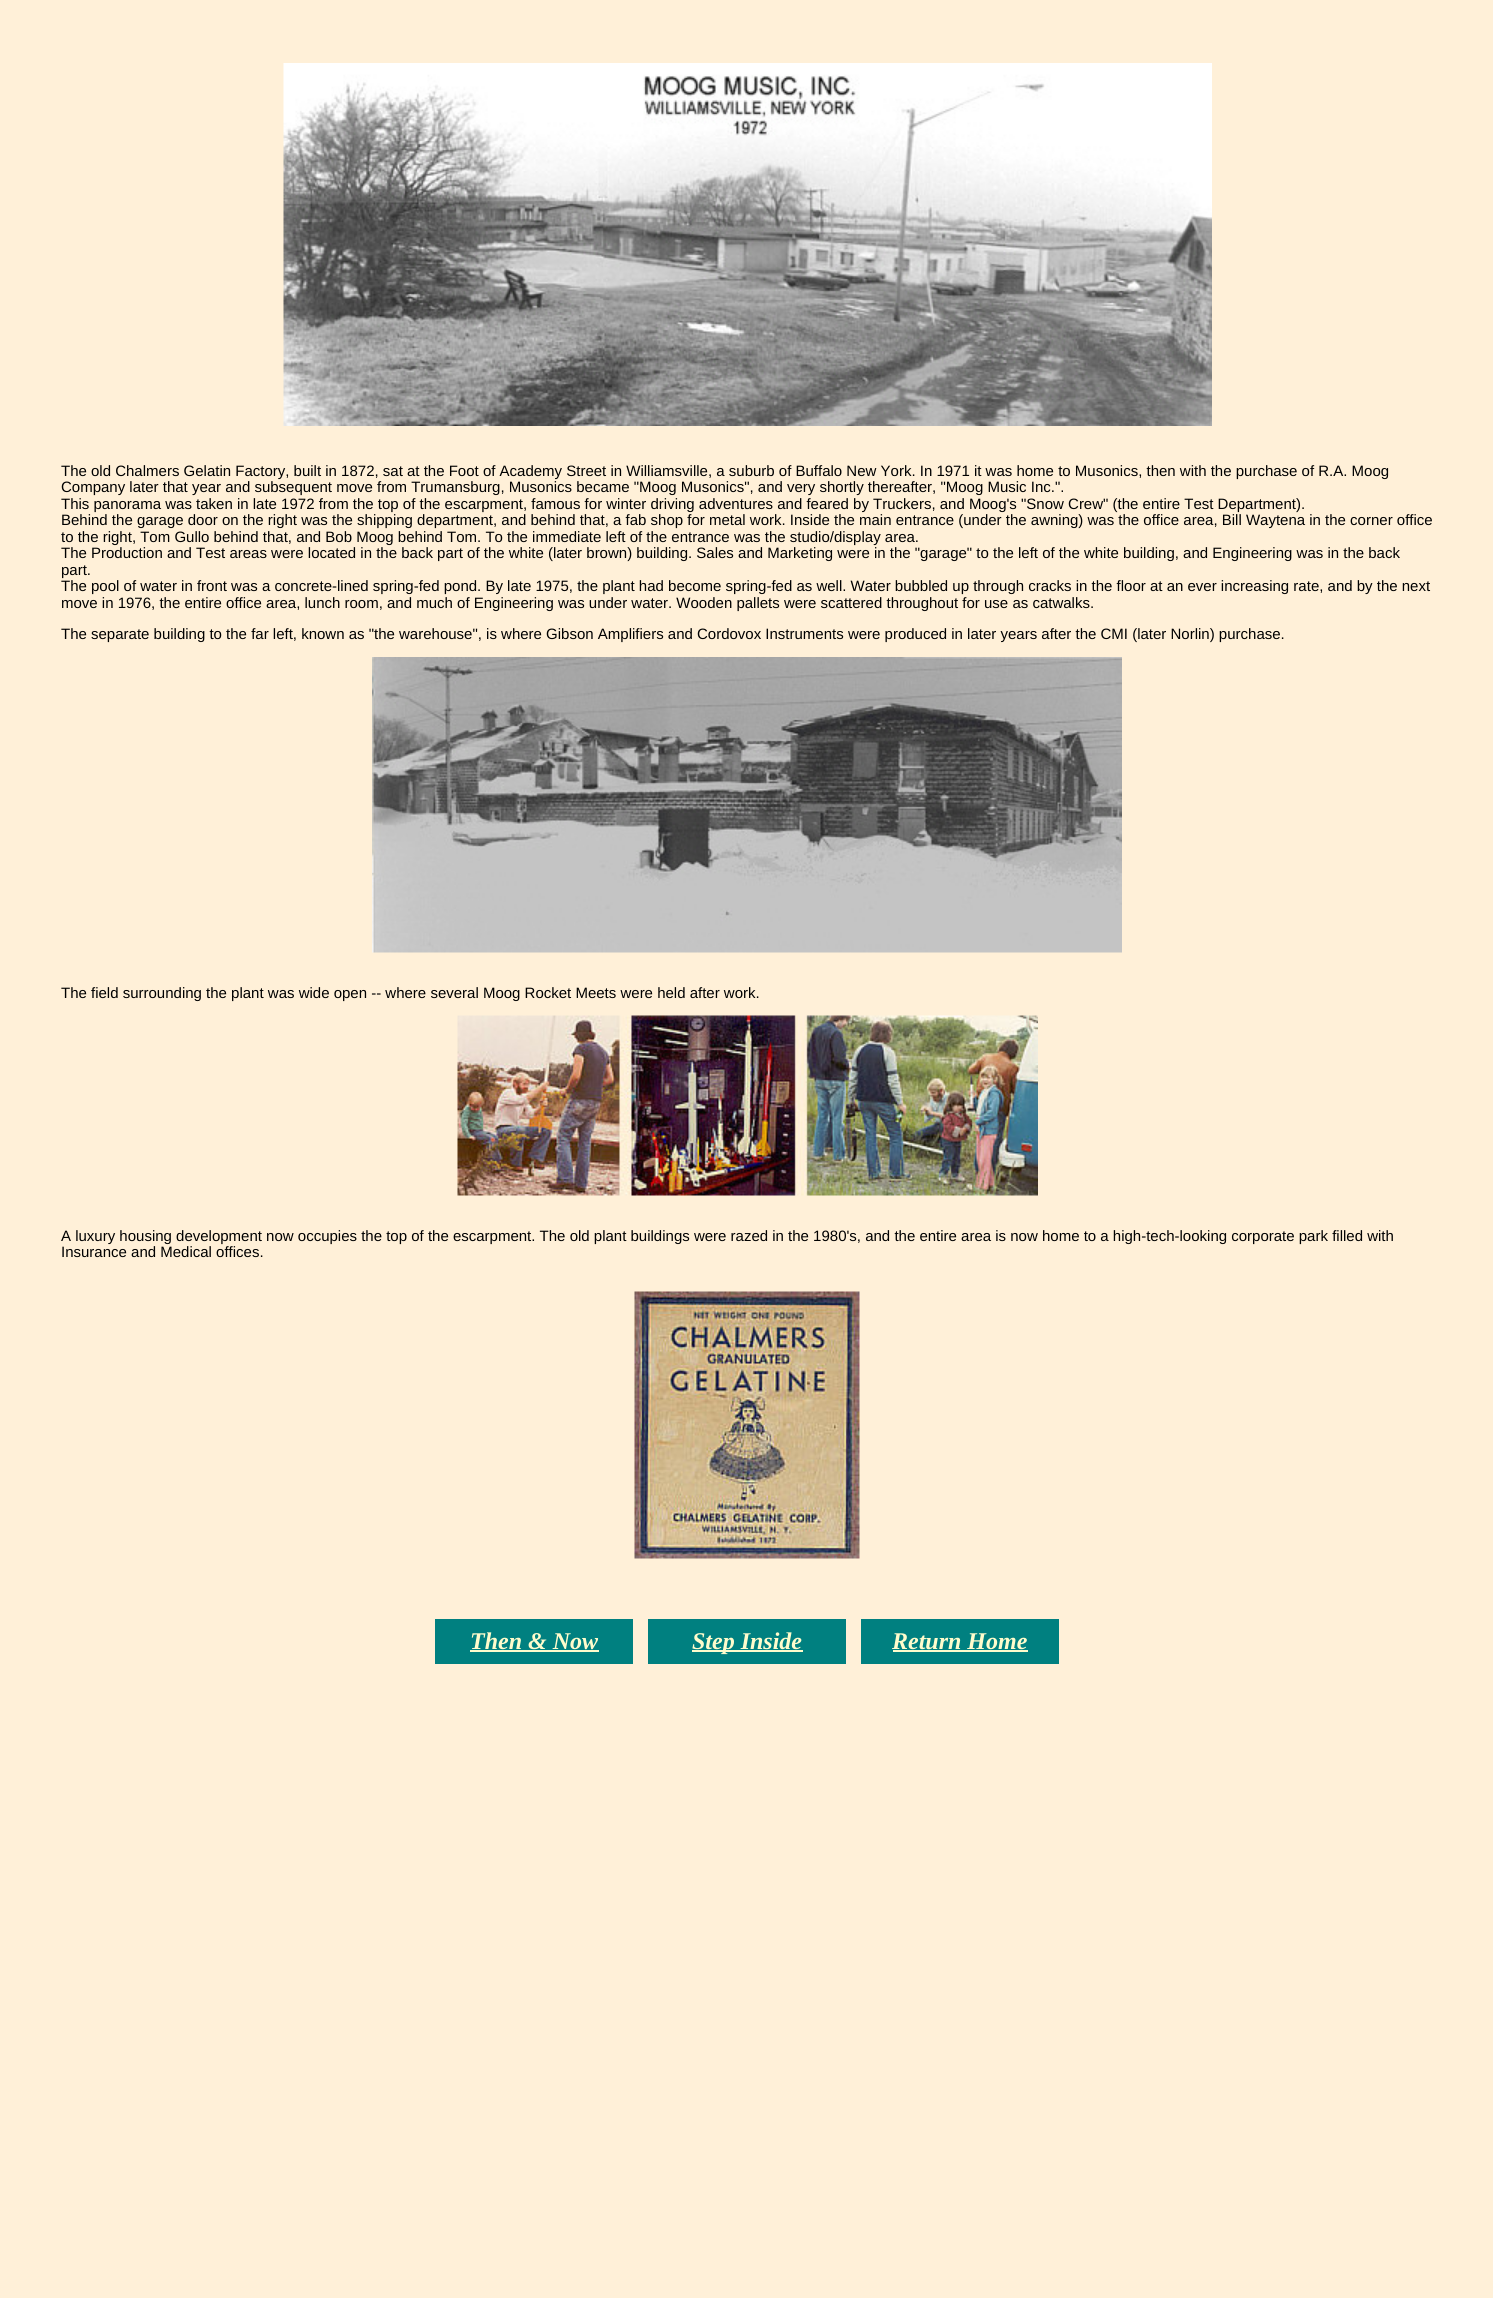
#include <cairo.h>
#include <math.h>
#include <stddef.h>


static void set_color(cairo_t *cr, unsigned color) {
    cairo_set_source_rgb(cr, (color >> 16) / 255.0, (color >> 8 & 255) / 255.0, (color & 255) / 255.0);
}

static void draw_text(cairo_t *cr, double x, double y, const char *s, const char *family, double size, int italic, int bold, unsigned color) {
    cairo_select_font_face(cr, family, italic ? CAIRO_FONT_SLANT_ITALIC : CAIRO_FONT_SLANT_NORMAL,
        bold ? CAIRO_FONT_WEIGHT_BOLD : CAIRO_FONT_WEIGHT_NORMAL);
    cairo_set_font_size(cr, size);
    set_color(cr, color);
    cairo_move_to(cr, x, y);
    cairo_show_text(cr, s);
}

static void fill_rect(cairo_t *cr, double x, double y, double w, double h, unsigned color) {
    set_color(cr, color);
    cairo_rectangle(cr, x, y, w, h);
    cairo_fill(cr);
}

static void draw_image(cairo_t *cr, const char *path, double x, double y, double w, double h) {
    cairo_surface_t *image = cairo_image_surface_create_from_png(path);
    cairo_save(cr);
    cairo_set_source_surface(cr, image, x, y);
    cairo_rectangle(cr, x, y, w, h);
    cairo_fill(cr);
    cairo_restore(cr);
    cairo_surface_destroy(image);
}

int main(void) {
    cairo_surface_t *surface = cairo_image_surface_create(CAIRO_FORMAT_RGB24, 1493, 2298);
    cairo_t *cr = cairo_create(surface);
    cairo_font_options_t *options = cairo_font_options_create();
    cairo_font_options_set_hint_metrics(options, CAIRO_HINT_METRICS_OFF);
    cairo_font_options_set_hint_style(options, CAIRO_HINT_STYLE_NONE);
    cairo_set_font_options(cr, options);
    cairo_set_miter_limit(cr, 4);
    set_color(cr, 0xFFF0D8);
    cairo_paint(cr);
    draw_image(cr, "assets/img1.png", 283, 63, 929, 363);
    draw_text(cr, 61, 476, "The old Chalmers Gelatin Factory, built in 1872, sat at the Foot of Academy Street in Williamsville, a suburb of Buffalo New York. In 1971 it was home to Musonics, then with the purchase of R.A. Moog", "Liberation Sans", 15, 0, 0, 0x000000);
    draw_text(cr, 61, 492, "Company later that year and subsequent move from Trumansburg, Musonics became \"Moog Musonics\", and very shortly thereafter, \"Moog Music Inc.\".", "Liberation Sans", 15, 0, 0, 0x000000);
    draw_text(cr, 61, 509, "This panorama was taken in late 1972 from the top of the escarpment, famous for winter driving adventures and feared by Truckers, and Moog's \"Snow Crew\" (the entire Test Department).", "Liberation Sans", 15, 0, 0, 0x000000);
    draw_text(cr, 61, 525, "Behind the garage door on the right was the shipping department, and behind that, a fab shop for metal work. Inside the main entrance (under the awning) was the office area, Bill Waytena in the corner office", "Liberation Sans", 15, 0, 0, 0x000000);
    draw_text(cr, 61, 542, "to the right, Tom Gullo behind that, and Bob Moog behind Tom. To the immediate left of the entrance was the studio/display area.", "Liberation Sans", 15, 0, 0, 0x000000);
    draw_text(cr, 61, 558, "The Production and Test areas were located in the back part of the white (later brown) building. Sales and Marketing were in the \"garage\" to the left of the white building, and Engineering was in the back", "Liberation Sans", 15, 0, 0, 0x000000);
    draw_text(cr, 61, 575, "part.", "Liberation Sans", 15, 0, 0, 0x000000);
    draw_text(cr, 61, 591, "The pool of water in front was a concrete-lined spring-fed pond. By late 1975, the plant had become spring-fed as well. Water bubbled up through cracks in the floor at an ever increasing rate, and by the next", "Liberation Sans", 15, 0, 0, 0x000000);
    draw_text(cr, 61, 608, "move in 1976, the entire office area, lunch room, and much of Engineering was under water. Wooden pallets were scattered throughout for use as catwalks.", "Liberation Sans", 15, 0, 0, 0x000000);
    draw_text(cr, 61, 639, "The separate building to the far left, known as \"the warehouse\", is where Gibson Amplifiers and Cordovox Instruments were produced in later years after the CMI (later Norlin) purchase.", "Liberation Sans", 15, 0, 0, 0x000000);
    draw_image(cr, "assets/img2.png", 372, 657, 750, 296);
    draw_text(cr, 61, 998, "The field surrounding the plant was wide open -- where several Moog Rocket Meets were held after work.", "Liberation Sans", 15, 0, 0, 0x000000);
    draw_image(cr, "assets/img3.png", 457, 1015, 581, 181);
    draw_text(cr, 61, 1241, "A luxury housing development now occupies the top of the escarpment. The old plant buildings were razed in the 1980's, and the entire area is now home to a high-tech-looking corporate park filled with", "Liberation Sans", 15, 0, 0, 0x000000);
    draw_text(cr, 61, 1257, "Insurance and Medical offices.", "Liberation Sans", 15, 0, 0, 0x000000);
    draw_image(cr, "assets/img4.png", 634, 1291, 226, 268);
    fill_rect(cr, 435, 1619, 198, 45, 0x008080);
    draw_text(cr, 470, 1649, "Then & Now", "Liberation Serif", 24, 1, 1, 0xFFFCCC);
    fill_rect(cr, 470, 1650, 129, 2, 0xFFFCCC);
    fill_rect(cr, 648, 1619, 198, 45, 0x008080);
    fill_rect(cr, 692, 1650, 111, 2, 0xFFFCCC);
    draw_text(cr, 692, 1649, "Step Inside", "Liberation Serif", 24, 1, 1, 0xFFFCCC);
    fill_rect(cr, 861, 1619, 198, 45, 0x008080);
    draw_text(cr, 892, 1649, "Return Home", "Liberation Serif", 24, 1, 1, 0xFFFCCC);
    fill_rect(cr, 893, 1650, 135, 2, 0xFFFCCC);
    cairo_surface_write_to_png(surface, "output.png");
    cairo_font_options_destroy(options);
    cairo_destroy(cr);
    cairo_surface_destroy(surface);
    return 0;
}
